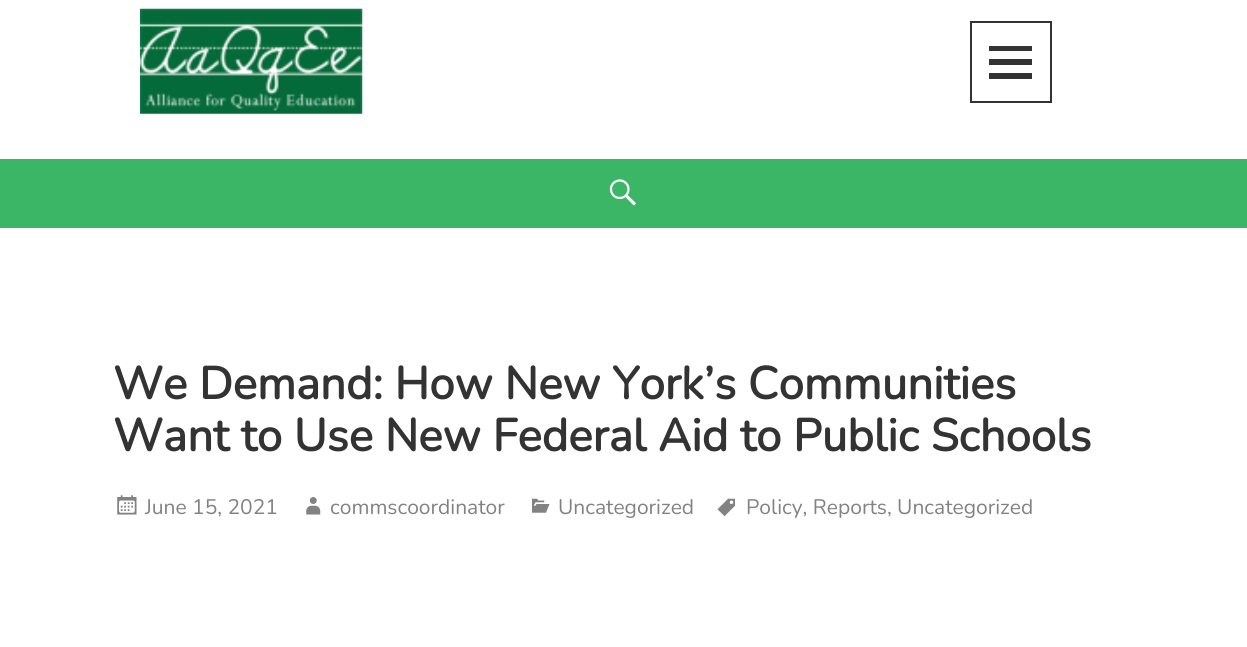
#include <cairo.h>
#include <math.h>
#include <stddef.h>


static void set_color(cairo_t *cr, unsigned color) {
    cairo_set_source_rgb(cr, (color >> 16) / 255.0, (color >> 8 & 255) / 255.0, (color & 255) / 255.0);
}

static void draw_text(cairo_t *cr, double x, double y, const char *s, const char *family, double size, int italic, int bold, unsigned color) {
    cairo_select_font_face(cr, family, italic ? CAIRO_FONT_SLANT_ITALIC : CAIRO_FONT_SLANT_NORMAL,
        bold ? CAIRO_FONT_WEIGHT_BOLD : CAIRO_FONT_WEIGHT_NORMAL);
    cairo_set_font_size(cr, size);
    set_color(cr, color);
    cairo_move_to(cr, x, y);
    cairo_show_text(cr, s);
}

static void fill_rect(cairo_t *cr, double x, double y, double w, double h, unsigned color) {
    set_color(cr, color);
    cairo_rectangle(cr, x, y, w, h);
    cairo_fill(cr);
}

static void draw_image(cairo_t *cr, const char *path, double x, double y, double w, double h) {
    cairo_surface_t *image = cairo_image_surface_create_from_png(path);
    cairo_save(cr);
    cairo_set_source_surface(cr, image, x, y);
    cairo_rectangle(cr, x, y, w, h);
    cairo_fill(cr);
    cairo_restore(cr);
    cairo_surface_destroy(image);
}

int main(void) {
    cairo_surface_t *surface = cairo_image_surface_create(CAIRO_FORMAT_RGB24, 1247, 647);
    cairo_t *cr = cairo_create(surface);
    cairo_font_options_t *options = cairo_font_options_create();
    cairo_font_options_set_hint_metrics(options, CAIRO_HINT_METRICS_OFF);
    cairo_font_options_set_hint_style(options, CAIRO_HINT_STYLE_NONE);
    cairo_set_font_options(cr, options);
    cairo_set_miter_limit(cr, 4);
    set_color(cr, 0xFFFFFF);
    cairo_paint(cr);
    draw_image(cr, "assets/img1.png", 140, 8, 223, 106);
    cairo_rectangle(cr, 971, 22, 80, 80);
    set_color(cr, 0x333333);
    cairo_stroke(cr);
    cairo_new_path(cr);
    cairo_move_to(cr, 989, 79);
    cairo_line_to(cr, 989, 73);
    cairo_line_to(cr, 1032, 73);
    cairo_line_to(cr, 1032, 79);
    cairo_close_path(cr);
    cairo_move_to(cr, 989, 46);
    cairo_line_to(cr, 1032, 46);
    cairo_line_to(cr, 1032, 51);
    cairo_line_to(cr, 989, 51);
    cairo_close_path(cr);
    cairo_move_to(cr, 989, 65);
    cairo_line_to(cr, 989, 59);
    cairo_line_to(cr, 1032, 59);
    cairo_line_to(cr, 1032, 65);
    cairo_close_path(cr);
    cairo_fill(cr);
    fill_rect(cr, 0, 159, 1247, 69, 0x3BB666);
    draw_image(cr, "assets/img2.png", 609, 179, 27, 27);
    draw_text(cr, 113, 399, "We Demand: How New York’s Communities", "Nunito", 45.5, 0, 1, 0x333333);
    draw_text(cr, 113, 451, "Want to Use New Federal Aid to Public Schools", "Nunito", 45.5, 0, 1, 0x333333);
    draw_image(cr, "assets/img3.png", 117, 495, 20, 20);
    draw_text(cr, 145, 514, "June 15, 2021", "Nunito ExtraLight", 21, 0, 0, 0x828282);
    draw_image(cr, "assets/img4.png", 306, 497, 15, 18);
    draw_text(cr, 330, 514, "commscoordinator", "Nunito ExtraLight", 21, 0, 0, 0x828282);
    draw_image(cr, "assets/img5.png", 532, 498, 18, 15);
    draw_text(cr, 558, 514, "Uncategorized", "Nunito ExtraLight", 21, 0, 0, 0x828282);
    draw_image(cr, "assets/img6.png", 717, 498, 18, 19);
    draw_text(cr, 746, 514, "Policy, Reports, Uncategorized", "Nunito ExtraLight", 21, 0, 0, 0x828282);
    cairo_surface_write_to_png(surface, "output.png");
    cairo_font_options_destroy(options);
    cairo_destroy(cr);
    cairo_surface_destroy(surface);
    return 0;
}
